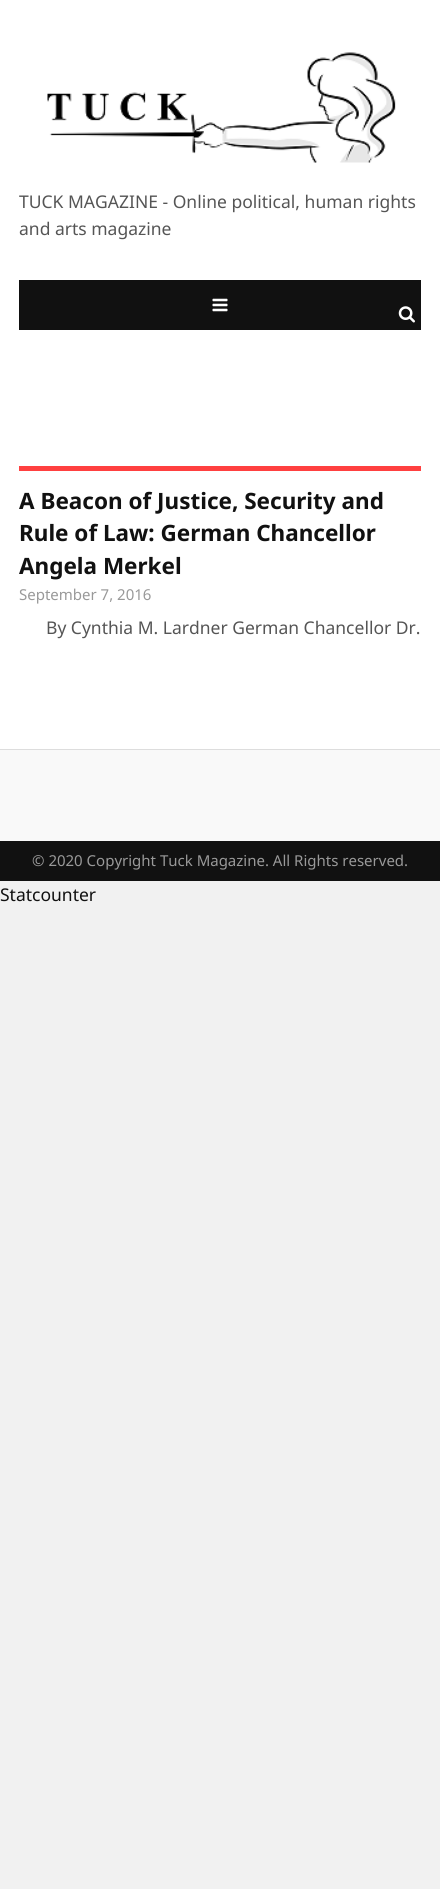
#include <cairo.h>
#include <math.h>
#include <stddef.h>


static void set_color(cairo_t *cr, unsigned color) {
    cairo_set_source_rgb(cr, (color >> 16) / 255.0, (color >> 8 & 255) / 255.0, (color & 255) / 255.0);
}

static void draw_text(cairo_t *cr, double x, double y, const char *s, const char *family, double size, int italic, int bold, unsigned color) {
    cairo_select_font_face(cr, family, italic ? CAIRO_FONT_SLANT_ITALIC : CAIRO_FONT_SLANT_NORMAL,
        bold ? CAIRO_FONT_WEIGHT_BOLD : CAIRO_FONT_WEIGHT_NORMAL);
    cairo_set_font_size(cr, size);
    set_color(cr, color);
    cairo_move_to(cr, x, y);
    cairo_show_text(cr, s);
}

static void fill_rect(cairo_t *cr, double x, double y, double w, double h, unsigned color) {
    set_color(cr, color);
    cairo_rectangle(cr, x, y, w, h);
    cairo_fill(cr);
}

static void draw_image(cairo_t *cr, const char *path, double x, double y, double w, double h) {
    cairo_surface_t *image = cairo_image_surface_create_from_png(path);
    cairo_save(cr);
    cairo_set_source_surface(cr, image, x, y);
    cairo_rectangle(cr, x, y, w, h);
    cairo_fill(cr);
    cairo_restore(cr);
    cairo_surface_destroy(image);
}

int main(void) {
    cairo_surface_t *surface = cairo_image_surface_create(CAIRO_FORMAT_RGB24, 440, 1889);
    cairo_t *cr = cairo_create(surface);
    cairo_font_options_t *options = cairo_font_options_create();
    cairo_font_options_set_hint_metrics(options, CAIRO_HINT_METRICS_OFF);
    cairo_font_options_set_hint_style(options, CAIRO_HINT_STYLE_NONE);
    cairo_set_font_options(cr, options);
    cairo_set_miter_limit(cr, 4);
    set_color(cr, 0xF1F1F1);
    cairo_paint(cr);
    fill_rect(cr, 0, 0, 440, 749, 0xFFFFFF);
    draw_image(cr, "assets/img1.png", 47, 52, 349, 111);
    draw_text(cr, 19, 208, "TUCK MAGAZINE - Online political, human rights", "Noto Sans", 17.5, 0, 0, 0x555555);
    draw_text(cr, 19, 235, "and arts magazine", "Noto Sans", 17.5, 0, 0, 0x555555);
    fill_rect(cr, 19, 280, 402, 50, 0x111111);
    draw_image(cr, "assets/img2.png", 212, 298, 16, 14);
    draw_image(cr, "assets/img3.png", 398, 306, 17, 17);
    fill_rect(cr, 19, 466, 402, 5, 0xFF4040);
    draw_text(cr, 19, 509, "A Beacon of Justice, Security and", "Noto Sans", 22.5, 0, 1, 0x111111);
    draw_text(cr, 19, 541, "Rule of Law: German Chancellor", "Noto Sans", 22.5, 0, 1, 0x111111);
    draw_text(cr, 19, 574, "Angela Merkel", "Noto Sans", 22.5, 0, 1, 0x111111);
    draw_text(cr, 19, 600, "September 7, 2016", "Noto Sans", 15, 0, 0, 0x999999);
    draw_text(cr, 46, 634, "By Cynthia M. Lardner German Chancellor Dr.", "Noto Sans", 17.5, 0, 0, 0x555555);
    fill_rect(cr, 0, 750, 440, 91, 0xF9F9F9);
    fill_rect(cr, 0, 749, 440, 1, 0xDDDDDD);
    fill_rect(cr, 0, 841, 440, 40, 0x111111);
    draw_text(cr, 32, 866, "© 2020 Copyright Tuck Magazine. All Rights reserved.", "Noto Sans", 15, 0, 0, 0x999999);
    draw_text(cr, 0, 901, "Statcounter", "Noto Sans", 17.5, 0, 0, 0x111111);
    cairo_surface_write_to_png(surface, "output.png");
    cairo_font_options_destroy(options);
    cairo_destroy(cr);
    cairo_surface_destroy(surface);
    return 0;
}
